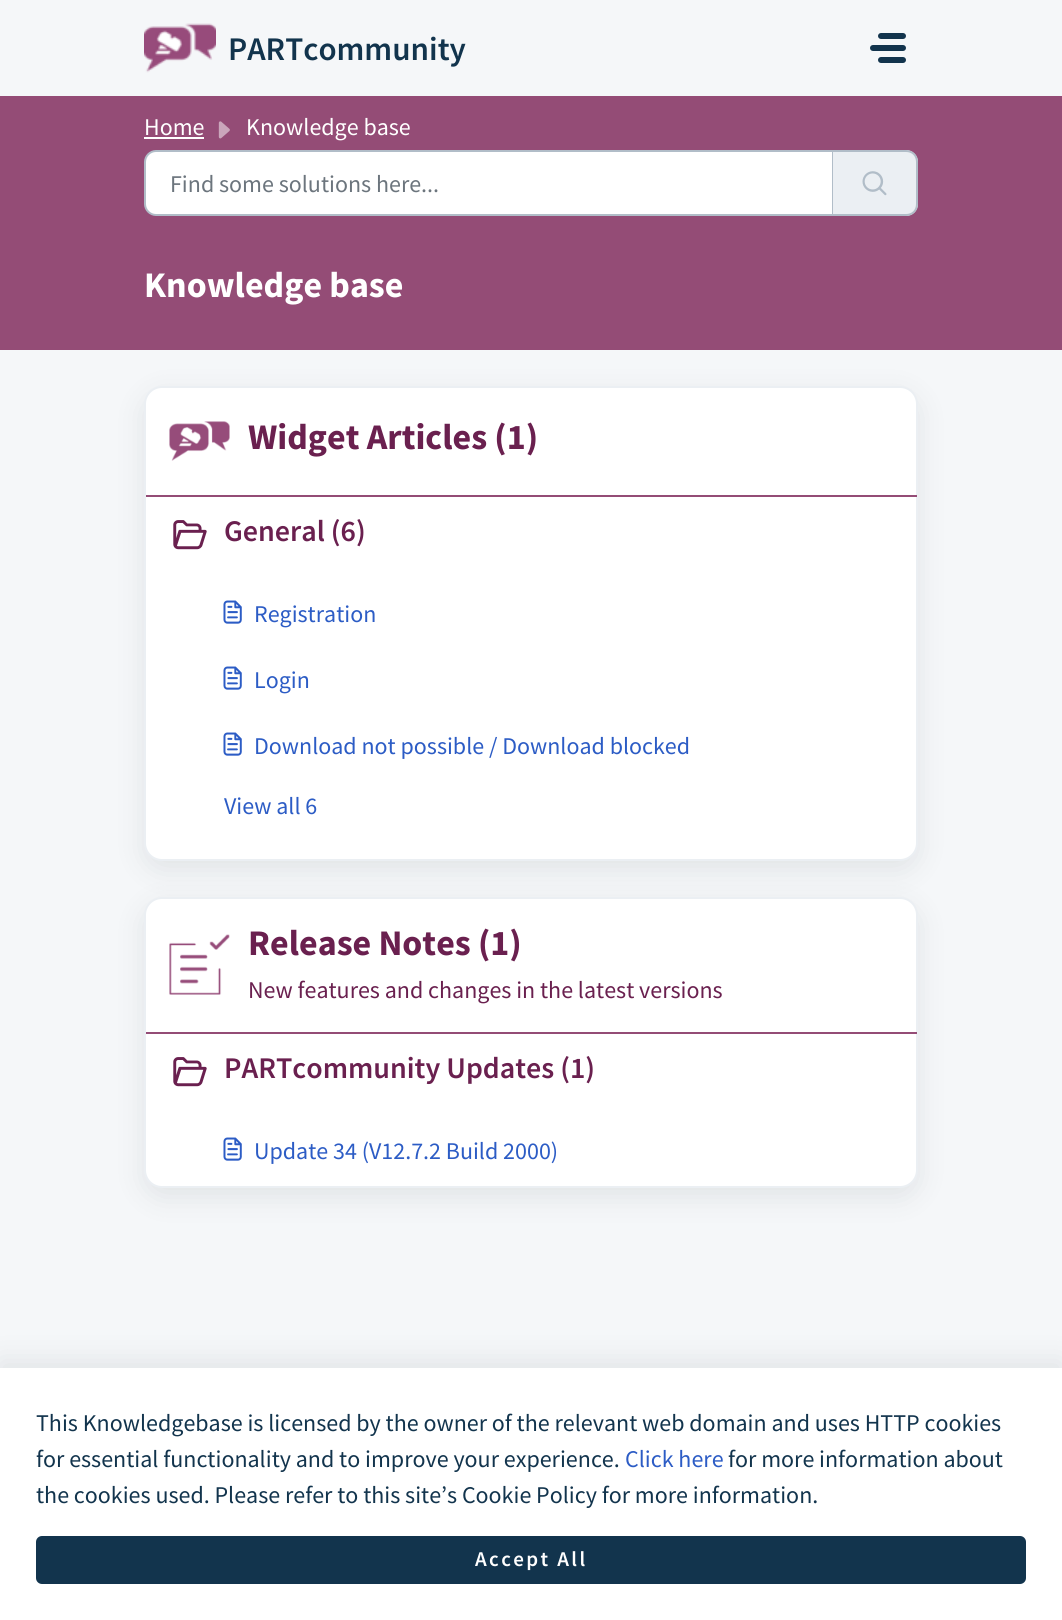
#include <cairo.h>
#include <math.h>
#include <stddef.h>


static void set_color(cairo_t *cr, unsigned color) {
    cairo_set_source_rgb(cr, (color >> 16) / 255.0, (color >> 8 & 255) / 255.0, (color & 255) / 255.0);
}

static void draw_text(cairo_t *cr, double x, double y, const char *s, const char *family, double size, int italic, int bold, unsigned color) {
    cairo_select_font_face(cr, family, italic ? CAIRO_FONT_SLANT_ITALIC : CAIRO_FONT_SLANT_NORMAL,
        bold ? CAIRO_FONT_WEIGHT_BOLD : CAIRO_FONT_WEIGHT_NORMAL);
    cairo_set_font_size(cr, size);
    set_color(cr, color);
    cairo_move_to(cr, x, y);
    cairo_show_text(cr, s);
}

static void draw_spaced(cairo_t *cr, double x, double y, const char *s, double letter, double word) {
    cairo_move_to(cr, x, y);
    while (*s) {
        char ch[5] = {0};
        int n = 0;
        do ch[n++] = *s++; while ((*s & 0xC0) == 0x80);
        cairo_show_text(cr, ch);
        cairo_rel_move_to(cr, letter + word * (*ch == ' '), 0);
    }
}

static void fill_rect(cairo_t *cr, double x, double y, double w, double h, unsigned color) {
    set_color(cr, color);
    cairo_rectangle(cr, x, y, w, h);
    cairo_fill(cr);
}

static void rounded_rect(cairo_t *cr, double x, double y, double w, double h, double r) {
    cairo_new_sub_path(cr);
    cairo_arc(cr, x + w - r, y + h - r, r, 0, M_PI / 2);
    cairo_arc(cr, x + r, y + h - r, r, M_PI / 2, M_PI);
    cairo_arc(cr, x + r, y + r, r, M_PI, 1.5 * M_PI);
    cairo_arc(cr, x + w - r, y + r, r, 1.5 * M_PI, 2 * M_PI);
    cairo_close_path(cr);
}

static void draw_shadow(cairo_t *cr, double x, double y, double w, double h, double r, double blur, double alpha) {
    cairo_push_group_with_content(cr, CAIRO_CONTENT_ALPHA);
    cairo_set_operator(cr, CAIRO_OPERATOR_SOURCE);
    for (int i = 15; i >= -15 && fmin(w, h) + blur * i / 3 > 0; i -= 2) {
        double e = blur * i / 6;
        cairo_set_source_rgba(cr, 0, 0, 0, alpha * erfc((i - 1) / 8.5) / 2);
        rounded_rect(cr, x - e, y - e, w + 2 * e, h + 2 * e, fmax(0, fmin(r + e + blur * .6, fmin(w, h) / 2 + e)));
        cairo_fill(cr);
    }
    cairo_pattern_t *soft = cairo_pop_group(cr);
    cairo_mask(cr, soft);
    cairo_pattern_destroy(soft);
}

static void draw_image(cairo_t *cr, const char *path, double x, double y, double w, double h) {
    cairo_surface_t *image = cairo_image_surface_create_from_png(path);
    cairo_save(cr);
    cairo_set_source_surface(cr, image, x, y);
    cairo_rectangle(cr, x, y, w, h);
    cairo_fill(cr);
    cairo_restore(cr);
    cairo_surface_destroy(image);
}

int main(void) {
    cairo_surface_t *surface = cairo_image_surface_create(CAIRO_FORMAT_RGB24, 1062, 1620);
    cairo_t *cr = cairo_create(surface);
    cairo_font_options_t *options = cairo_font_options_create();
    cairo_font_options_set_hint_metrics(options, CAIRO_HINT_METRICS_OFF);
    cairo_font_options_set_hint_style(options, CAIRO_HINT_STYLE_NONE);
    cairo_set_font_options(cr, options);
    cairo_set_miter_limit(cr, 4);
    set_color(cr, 0xF5F7F9);
    cairo_paint(cr);
    draw_image(cr, "assets/img1.png", 144, 23, 72, 50);
    draw_text(cr, 228, 60, "PARTcommunity", "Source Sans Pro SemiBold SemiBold", 33, 0, 0, 0x12344D);
    rounded_rect(cr, 878, 33, 28, 6, 3);
    cairo_fill(cr);
    rounded_rect(cr, 870, 45, 36, 6, 3);
    cairo_fill(cr);
    rounded_rect(cr, 878, 57, 28, 6, 3);
    cairo_fill(cr);
    fill_rect(cr, 0, 96, 1062, 254, 0x944C76);
    draw_text(cr, 144, 135, "Home", "Source Sans Pro", 24, 0, 0, 0xFFFFFF);
    fill_rect(cr, 144, 137, 60, 2, 0xFFFFFF);
    draw_image(cr, "assets/img2.png", 218, 121, 12, 18);
    draw_text(cr, 246, 135, "Knowledge base", "Source Sans Pro", 24, 0, 0, 0xFFFFFF);
    cairo_new_path(cr);
    cairo_move_to(cr, 156, 151);
    cairo_line_to(cr, 833, 151);
    cairo_line_to(cr, 833, 215);
    cairo_line_to(cr, 156, 215);
    cairo_curve_to(cr, 150, 215, 145, 210, 145, 204);
    cairo_line_to(cr, 145, 162);
    cairo_curve_to(cr, 145, 156, 150, 151, 156, 151);
    cairo_close_path(cr);
    cairo_fill_preserve(cr);
    set_color(cr, 0xB1BDC8);
    cairo_stroke(cr);
    draw_text(cr, 170, 192, "Find some solutions here...", "Source Sans Pro", 24, 0, 0, 0x6C757D);
    set_color(cr, 0xEBEFF3);
    cairo_new_path(cr);
    cairo_move_to(cr, 833, 150);
    cairo_line_to(cr, 906, 150);
    cairo_curve_to(cr, 912.5, 150, 918, 155.5, 918, 162);
    cairo_line_to(cr, 918, 204);
    cairo_curve_to(cr, 918, 210.5, 912.5, 216, 906, 216);
    cairo_line_to(cr, 833, 216);
    cairo_close_path(cr);
    cairo_fill(cr);
    set_color(cr, 0xB1BDC8);
    cairo_set_fill_rule(cr, CAIRO_FILL_RULE_EVEN_ODD);
    cairo_new_path(cr);
    cairo_move_to(cr, 832, 150);
    cairo_line_to(cr, 906, 150);
    cairo_curve_to(cr, 913, 150, 918, 155, 918, 162);
    cairo_line_to(cr, 918, 204);
    cairo_curve_to(cr, 918, 211, 913, 216, 906, 216);
    cairo_line_to(cr, 832, 216);
    cairo_close_path(cr);
    cairo_move_to(cr, 832, 152);
    cairo_line_to(cr, 906, 152);
    cairo_curve_to(cr, 912, 152, 916, 156, 916, 162);
    cairo_line_to(cr, 916, 204);
    cairo_curve_to(cr, 916, 210, 912, 214, 906, 214);
    cairo_line_to(cr, 832, 214);
    cairo_close_path(cr);
    cairo_fill(cr);
    draw_image(cr, "assets/img3.png", 862, 171, 25, 25);
    draw_text(cr, 144, 297, "Knowledge base", "Source Sans Pro", 36, 0, 1, 0xFFFFFF);
    set_color(cr, 0x27313A);
    draw_shadow(cr, 144, 395, 774, 475, 18, 14, 0.1);
    set_color(cr, 0xFFFFFF);
    rounded_rect(cr, 145, 387, 772, 473, 17);
    cairo_fill_preserve(cr);
    set_color(cr, 0xEBEFF3);
    cairo_stroke(cr);
    fill_rect(cr, 146, 495, 771, 2, 0x944C76);
    draw_image(cr, "assets/img4.png", 169, 421, 61, 40);
    draw_text(cr, 248, 449, "Widget Articles (1)", "Source Sans Pro", 36, 0, 1, 0x6A204F);
    draw_image(cr, "assets/img5.png", 173, 520, 34, 30);
    draw_text(cr, 224, 541, "General (6)", "Source Sans Pro SemiBold SemiBold", 30, 0, 0, 0x6A204F);
    draw_image(cr, "assets/img6.png", 223, 600, 19, 24);
    draw_text(cr, 254, 622, "Registration", "Source Sans Pro", 24, 0, 0, 0x2C5CC5);
    draw_image(cr, "assets/img6.png", 223, 666, 19, 24);
    draw_text(cr, 254, 688, "Login", "Source Sans Pro", 24, 0, 0, 0x2C5CC5);
    draw_image(cr, "assets/img6.png", 223, 732, 19, 24);
    draw_text(cr, 254, 754, "Download not possible / Download blocked", "Source Sans Pro", 24, 0, 0, 0x2C5CC5);
    draw_text(cr, 224, 814, "View all 6", "Source Sans Pro", 24, 0, 0, 0x2C5CC5);
    set_color(cr, 0x27313A);
    draw_shadow(cr, 144, 906, 774, 291, 18, 14, 0.1);
    set_color(cr, 0xFFFFFF);
    rounded_rect(cr, 145, 898, 772, 289, 17);
    cairo_fill_preserve(cr);
    set_color(cr, 0xEBEFF3);
    cairo_stroke(cr);
    fill_rect(cr, 146, 1032, 771, 2, 0x944C76);
    draw_image(cr, "assets/img7.png", 169, 934, 61, 61);
    draw_text(cr, 248, 955, "Release Notes (1)", "Source Sans Pro", 36, 0, 1, 0x6A204F);
    draw_text(cr, 248, 998, "New features and changes in the latest versions", "Source Sans Pro", 24, 0, 0, 0x6A204F);
    draw_image(cr, "assets/img5.png", 173, 1057, 34, 30);
    draw_text(cr, 224, 1078, "PARTcommunity Updates (1)", "Source Sans Pro SemiBold SemiBold", 30, 0, 0, 0x6A204F);
    draw_image(cr, "assets/img6.png", 223, 1137, 19, 24);
    draw_text(cr, 254, 1159, "Update 34 (V12.7.2 Build 2000)", "Source Sans Pro", 24, 0, 0, 0x2C5CC5);
    set_color(cr, 0x27313A);
    draw_shadow(cr, 0, 1361, 1062, 252, 0, 14, 0.1);
    fill_rect(cr, 0, 1368, 1062, 252, 0xFFFFFF);
    draw_text(cr, 36, 1431, "This Knowledgebase is licensed by the owner of the relevant web domain and uses HTTP cookies", "Source Sans Pro", 24, 0, 0, 0x12344D);
    draw_text(cr, 36, 1467, "for essential functionality and to improve your experience.", "Source Sans Pro", 24, 0, 0, 0x12344D);
    draw_text(cr, 625, 1467, "Click here", "Source Sans Pro", 24, 0, 0, 0x2C5CC5);
    draw_text(cr, 728, 1467, "for more information about", "Source Sans Pro", 24, 0, 0, 0x12344D);
    draw_text(cr, 36, 1503, "the cookies used. Please refer to this site’s Cookie Policy for more information.", "Source Sans Pro", 24, 0, 0, 0x12344D);
    rounded_rect(cr, 37, 1537, 988, 46, 5);
    cairo_fill_preserve(cr);
    cairo_stroke(cr);
    cairo_select_font_face(cr, "Source Sans Pro SemiBold SemiBold", CAIRO_FONT_SLANT_NORMAL, CAIRO_FONT_WEIGHT_NORMAL);
    cairo_set_font_size(cr, 21);
    set_color(cr, 0xFFFFFF);
    draw_spaced(cr, 475, 1566, "Accept All", 2.4, 0);
    cairo_surface_write_to_png(surface, "output.png");
    cairo_font_options_destroy(options);
    cairo_destroy(cr);
    cairo_surface_destroy(surface);
    return 0;
}
